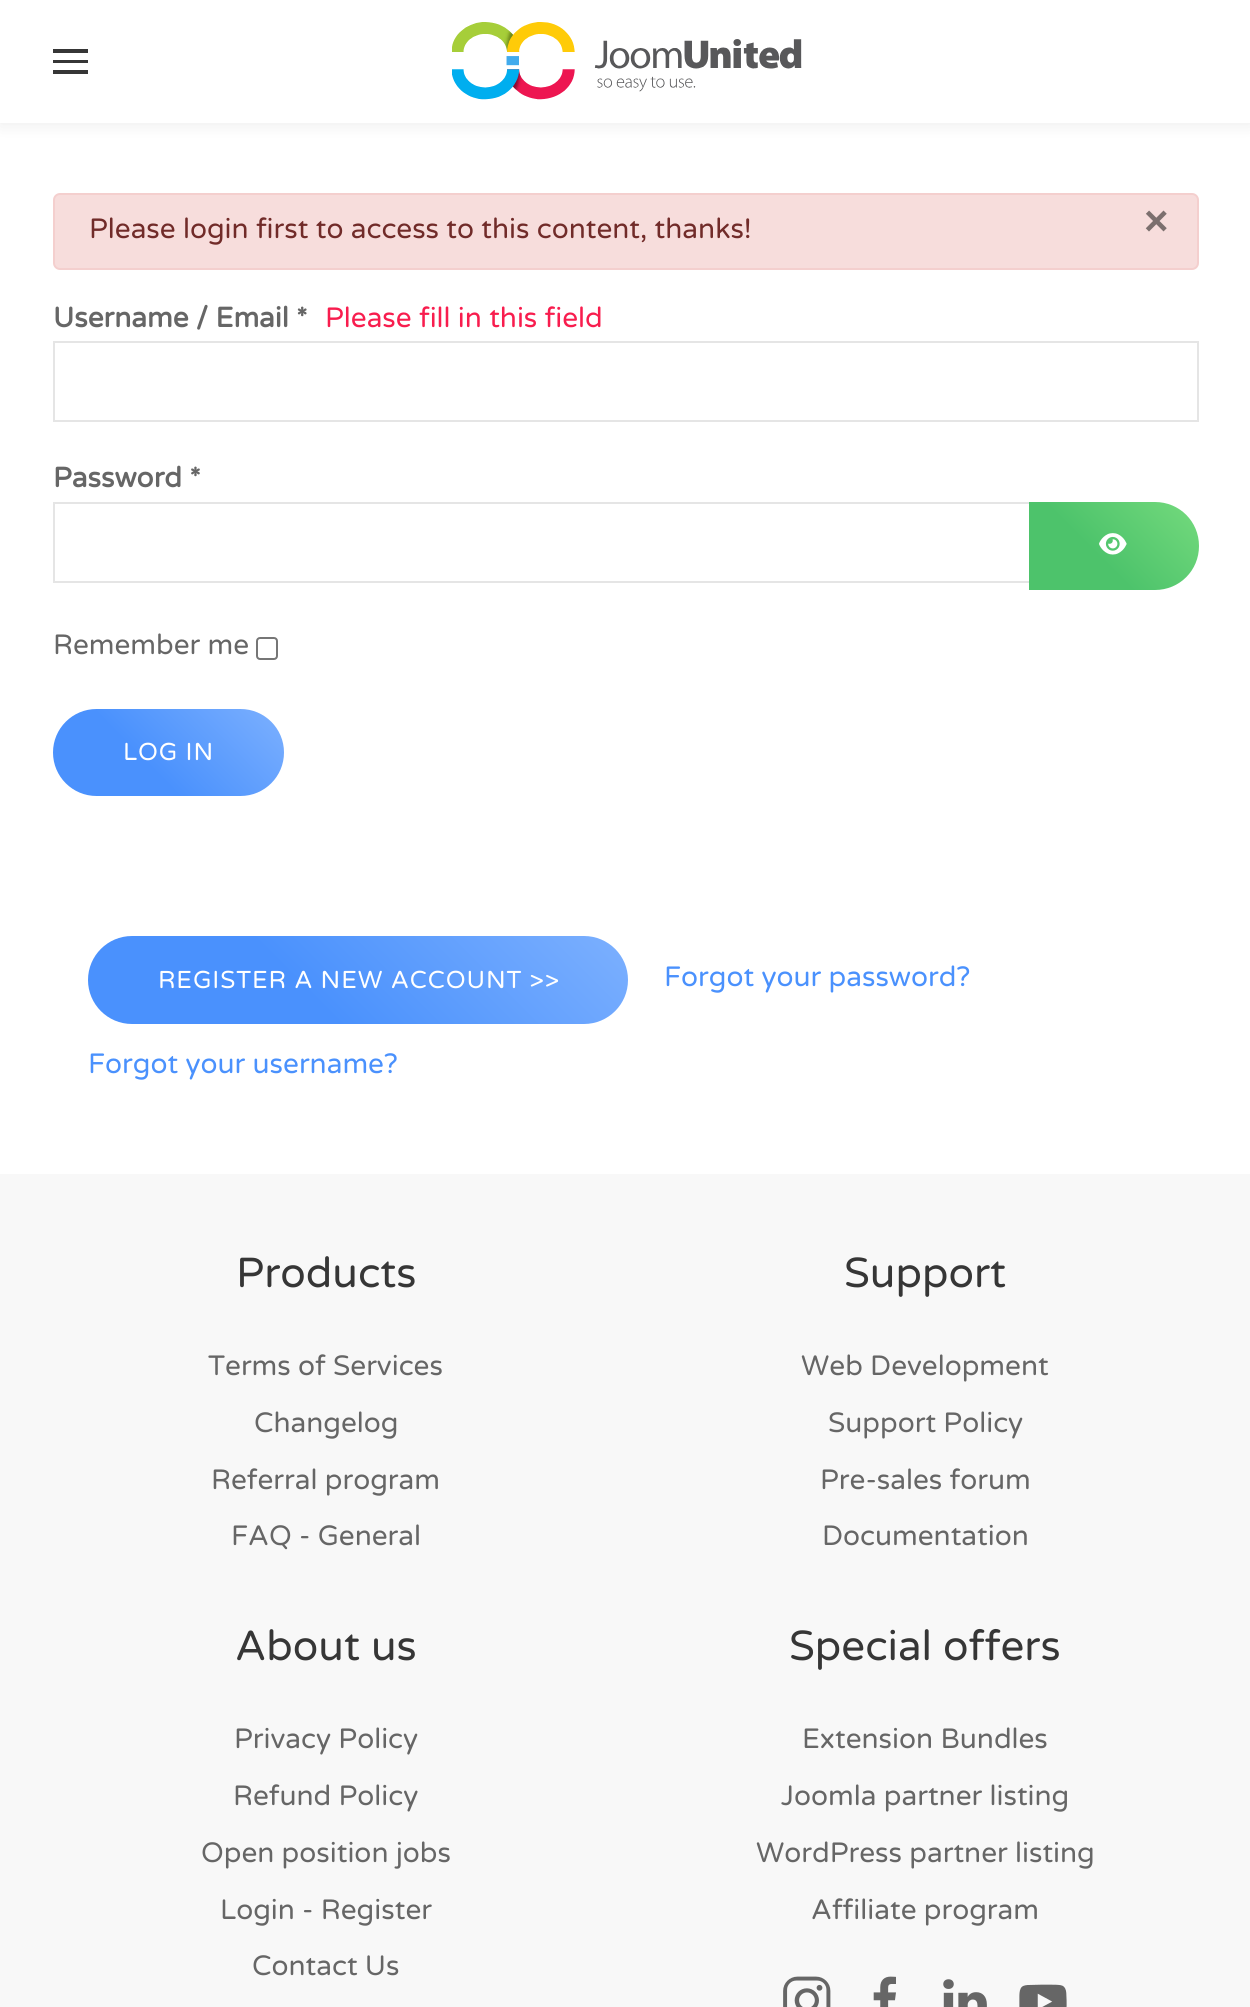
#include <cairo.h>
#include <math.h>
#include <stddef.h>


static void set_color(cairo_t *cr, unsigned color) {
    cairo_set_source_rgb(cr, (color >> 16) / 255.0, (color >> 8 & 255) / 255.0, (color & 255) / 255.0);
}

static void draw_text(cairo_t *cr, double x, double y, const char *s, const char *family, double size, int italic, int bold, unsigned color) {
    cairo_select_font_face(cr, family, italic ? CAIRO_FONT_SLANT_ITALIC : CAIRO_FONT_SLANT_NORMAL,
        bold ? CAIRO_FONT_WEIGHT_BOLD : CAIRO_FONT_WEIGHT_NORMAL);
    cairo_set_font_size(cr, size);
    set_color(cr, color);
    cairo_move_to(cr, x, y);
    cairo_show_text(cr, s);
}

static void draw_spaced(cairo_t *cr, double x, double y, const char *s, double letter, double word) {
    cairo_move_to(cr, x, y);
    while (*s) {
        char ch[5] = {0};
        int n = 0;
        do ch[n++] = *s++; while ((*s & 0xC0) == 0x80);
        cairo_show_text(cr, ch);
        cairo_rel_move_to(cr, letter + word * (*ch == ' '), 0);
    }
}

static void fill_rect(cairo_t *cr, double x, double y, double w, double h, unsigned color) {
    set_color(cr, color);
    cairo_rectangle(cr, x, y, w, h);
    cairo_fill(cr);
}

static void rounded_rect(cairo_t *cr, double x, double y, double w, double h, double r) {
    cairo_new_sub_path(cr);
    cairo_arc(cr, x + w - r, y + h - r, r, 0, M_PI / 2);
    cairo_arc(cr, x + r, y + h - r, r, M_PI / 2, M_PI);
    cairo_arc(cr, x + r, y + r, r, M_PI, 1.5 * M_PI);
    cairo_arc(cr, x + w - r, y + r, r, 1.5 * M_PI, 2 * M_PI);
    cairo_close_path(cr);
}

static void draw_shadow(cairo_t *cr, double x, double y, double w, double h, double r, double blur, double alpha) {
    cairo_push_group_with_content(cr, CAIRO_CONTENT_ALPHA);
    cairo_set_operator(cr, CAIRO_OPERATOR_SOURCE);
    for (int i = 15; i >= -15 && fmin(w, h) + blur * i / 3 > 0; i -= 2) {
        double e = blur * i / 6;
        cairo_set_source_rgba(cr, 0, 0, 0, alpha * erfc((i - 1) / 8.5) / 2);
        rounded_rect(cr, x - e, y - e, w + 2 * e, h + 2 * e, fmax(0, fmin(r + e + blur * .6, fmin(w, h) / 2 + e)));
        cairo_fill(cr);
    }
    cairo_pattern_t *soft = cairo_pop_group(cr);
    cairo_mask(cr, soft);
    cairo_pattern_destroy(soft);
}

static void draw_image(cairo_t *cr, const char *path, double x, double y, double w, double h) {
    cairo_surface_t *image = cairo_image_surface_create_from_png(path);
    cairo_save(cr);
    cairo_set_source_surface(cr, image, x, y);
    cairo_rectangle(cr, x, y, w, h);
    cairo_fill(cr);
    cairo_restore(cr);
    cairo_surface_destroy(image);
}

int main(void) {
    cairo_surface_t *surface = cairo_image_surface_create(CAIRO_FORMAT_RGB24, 1250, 2007);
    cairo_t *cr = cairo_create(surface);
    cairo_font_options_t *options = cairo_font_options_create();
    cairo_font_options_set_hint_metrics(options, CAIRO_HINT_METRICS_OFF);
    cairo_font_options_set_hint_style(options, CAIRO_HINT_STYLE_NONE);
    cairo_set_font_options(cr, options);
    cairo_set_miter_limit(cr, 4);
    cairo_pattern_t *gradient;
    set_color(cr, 0xFFFFFF);
    cairo_paint(cr);
    set_color(cr, 0x000000);
    draw_shadow(cr, 0, 2, 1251, 122, 0, 9, 0.08);
    fill_rect(cr, 0, 0, 1250, 123, 0xFFFFFF);
    fill_rect(cr, 53, 49, 35, 4, 0x363636);
    fill_rect(cr, 53, 60, 35, 3, 0x363636);
    fill_rect(cr, 53, 70, 35, 4, 0x363636);
    draw_image(cr, "assets/img1.png", 452, 22, 350, 78);
    set_color(cr, 0xF7DDDC);
    rounded_rect(cr, 54, 194, 1144, 75, 6);
    cairo_fill_preserve(cr);
    set_color(cr, 0xF4CFCE);
    cairo_stroke(cr);
    draw_text(cr, 89, 238, "Please login first to access to this content, thanks!", "Varela Round", 28, 0, 0, 0x712B29);
    draw_text(cr, 1144, 235, "×", "Liberation Sans", 42, 0, 1, 0x7C6F6E);
    draw_text(cr, 53, 327, "Username / Email *", "Varela Round", 28, 0, 1, 0x666666);
    draw_text(cr, 325, 327, "Please fill in this field", "Varela Round", 28, 0, 0, 0xF81D4E);
    cairo_rectangle(cr, 54, 342, 1144, 79);
    set_color(cr, 0xE5E5E5);
    cairo_stroke(cr);
    draw_text(cr, 53, 487, "Password *", "Varela Round", 28, 0, 1, 0x666666);
    cairo_rectangle(cr, 54, 503, 978, 79);
    set_color(cr, 0xE5E5E5);
    cairo_stroke(cr);
    gradient = cairo_pattern_create_linear(1050, 610, 1178, 482);
    cairo_pattern_add_color_stop_rgba(gradient, 0.4, 0.302, 0.765, 0.42, 1);
    cairo_pattern_add_color_stop_rgba(gradient, 1, 0.455, 0.855, 0.49, 1);
    cairo_set_source(cr, gradient);
    cairo_pattern_destroy(gradient);
    cairo_new_path(cr);
    cairo_move_to(cr, 1029, 502);
    cairo_line_to(cr, 1155, 502);
    cairo_curve_to(cr, 1179.5, 502, 1199, 521.5, 1199, 546);
    cairo_curve_to(cr, 1199, 570.5, 1179.5, 590, 1155, 590);
    cairo_line_to(cr, 1029, 590);
    cairo_close_path(cr);
    cairo_fill(cr);
    draw_image(cr, "assets/img2.png", 1099, 533, 28, 22);
    draw_text(cr, 53, 654, "Remember me", "Varela Round", 28, 0, 0, 0x666666);
    rounded_rect(cr, 257, 638, 20, 21, 3);
    set_color(cr, 0x767676);
    cairo_stroke(cr);
    gradient = cairo_pattern_create_linear(88, 832, 248, 673);
    cairo_pattern_add_color_stop_rgba(gradient, 0.4, 0.29, 0.569, 0.992, 1);
    cairo_pattern_add_color_stop_rgba(gradient, 1, 0.486, 0.69, 0.996, 1);
    cairo_set_source(cr, gradient);
    cairo_pattern_destroy(gradient);
    rounded_rect(cr, 53, 709, 231, 87, 43.5);
    cairo_fill(cr);
    cairo_set_font_size(cr, 24.5);
    set_color(cr, 0xFFFFFF);
    draw_spaced(cr, 123, 760, "LOG IN", 0.9, 0);
    gradient = cairo_pattern_create_linear(201, 1137, 515, 823);
    cairo_pattern_add_color_stop_rgba(gradient, 0.4, 0.29, 0.569, 0.992, 1);
    cairo_pattern_add_color_stop_rgba(gradient, 1, 0.486, 0.69, 0.996, 1);
    cairo_set_source(cr, gradient);
    cairo_pattern_destroy(gradient);
    rounded_rect(cr, 88, 936, 540, 88, 44);
    cairo_fill(cr);
    set_color(cr, 0xFFFFFF);
    draw_spaced(cr, 158, 988, "REGISTER A NEW ACCOUNT >>", 0.9, 0);
    draw_text(cr, 664, 986, "Forgot your password?", "Varela Round", 28, 0, 0, 0x4A91FD);
    draw_text(cr, 88, 1073, "Forgot your username?", "Varela Round", 28, 0, 0, 0x4A91FD);
    fill_rect(cr, 0, 1174, 1250, 833, 0xF8F8F8);
    draw_text(cr, 236, 1287, "Products", "Varela Round", 42, 0, 0, 0x363636);
    draw_text(cr, 208, 1375, "Terms of Services", "Varela Round", 28, 0, 0, 0x666666);
    draw_text(cr, 254, 1432, "Changelog", "Varela Round", 28, 0, 0, 0x666666);
    draw_text(cr, 211, 1489, "Referral program", "Varela Round", 28, 0, 0, 0x666666);
    draw_text(cr, 231, 1545, "FAQ - General", "Varela Round", 28, 0, 0, 0x666666);
    draw_text(cr, 844, 1287, "Support", "Varela Round", 42, 0, 0, 0x363636);
    draw_text(cr, 801, 1375, "Web Development", "Varela Round", 28, 0, 0, 0x666666);
    draw_text(cr, 828, 1432, "Support Policy", "Varela Round", 28, 0, 0, 0x666666);
    draw_text(cr, 820, 1489, "Pre-sales forum", "Varela Round", 28, 0, 0, 0x666666);
    draw_text(cr, 822, 1545, "Documentation", "Varela Round", 28, 0, 0, 0x666666);
    draw_text(cr, 235, 1660, "About us", "Varela Round", 42, 0, 0, 0x363636);
    draw_text(cr, 234, 1748, "Privacy Policy", "Varela Round", 28, 0, 0, 0x666666);
    draw_text(cr, 233, 1805, "Refund Policy", "Varela Round", 28, 0, 0, 0x666666);
    draw_text(cr, 201, 1862, "Open position jobs", "Varela Round", 28, 0, 0, 0x666666);
    draw_text(cr, 220, 1919, "Login - Register", "Varela Round", 28, 0, 0, 0x666666);
    draw_text(cr, 252, 1975, "Contact Us", "Varela Round", 28, 0, 0, 0x666666);
    draw_text(cr, 789, 1660, "Special offers", "Varela Round", 42, 0, 0, 0x363636);
    draw_text(cr, 802, 1748, "Extension Bundles", "Varela Round", 28, 0, 0, 0x666666);
    draw_text(cr, 781, 1805, "Joomla partner listing", "Varela Round", 28, 0, 0, 0x666666);
    draw_text(cr, 756, 1862, "WordPress partner listing", "Varela Round", 28, 0, 0, 0x666666);
    draw_text(cr, 811, 1919, "Affiliate program", "Varela Round", 28, 0, 0, 0x666666);
    draw_image(cr, "assets/img3.png", 783, 1976, 48, 31);
    draw_image(cr, "assets/img4.png", 873, 1976, 23, 31);
    draw_image(cr, "assets/img5.png", 943, 1979, 44, 28);
    draw_image(cr, "assets/img6.png", 1019, 1984, 48, 23);
    cairo_surface_write_to_png(surface, "output.png");
    cairo_font_options_destroy(options);
    cairo_destroy(cr);
    cairo_surface_destroy(surface);
    return 0;
}
